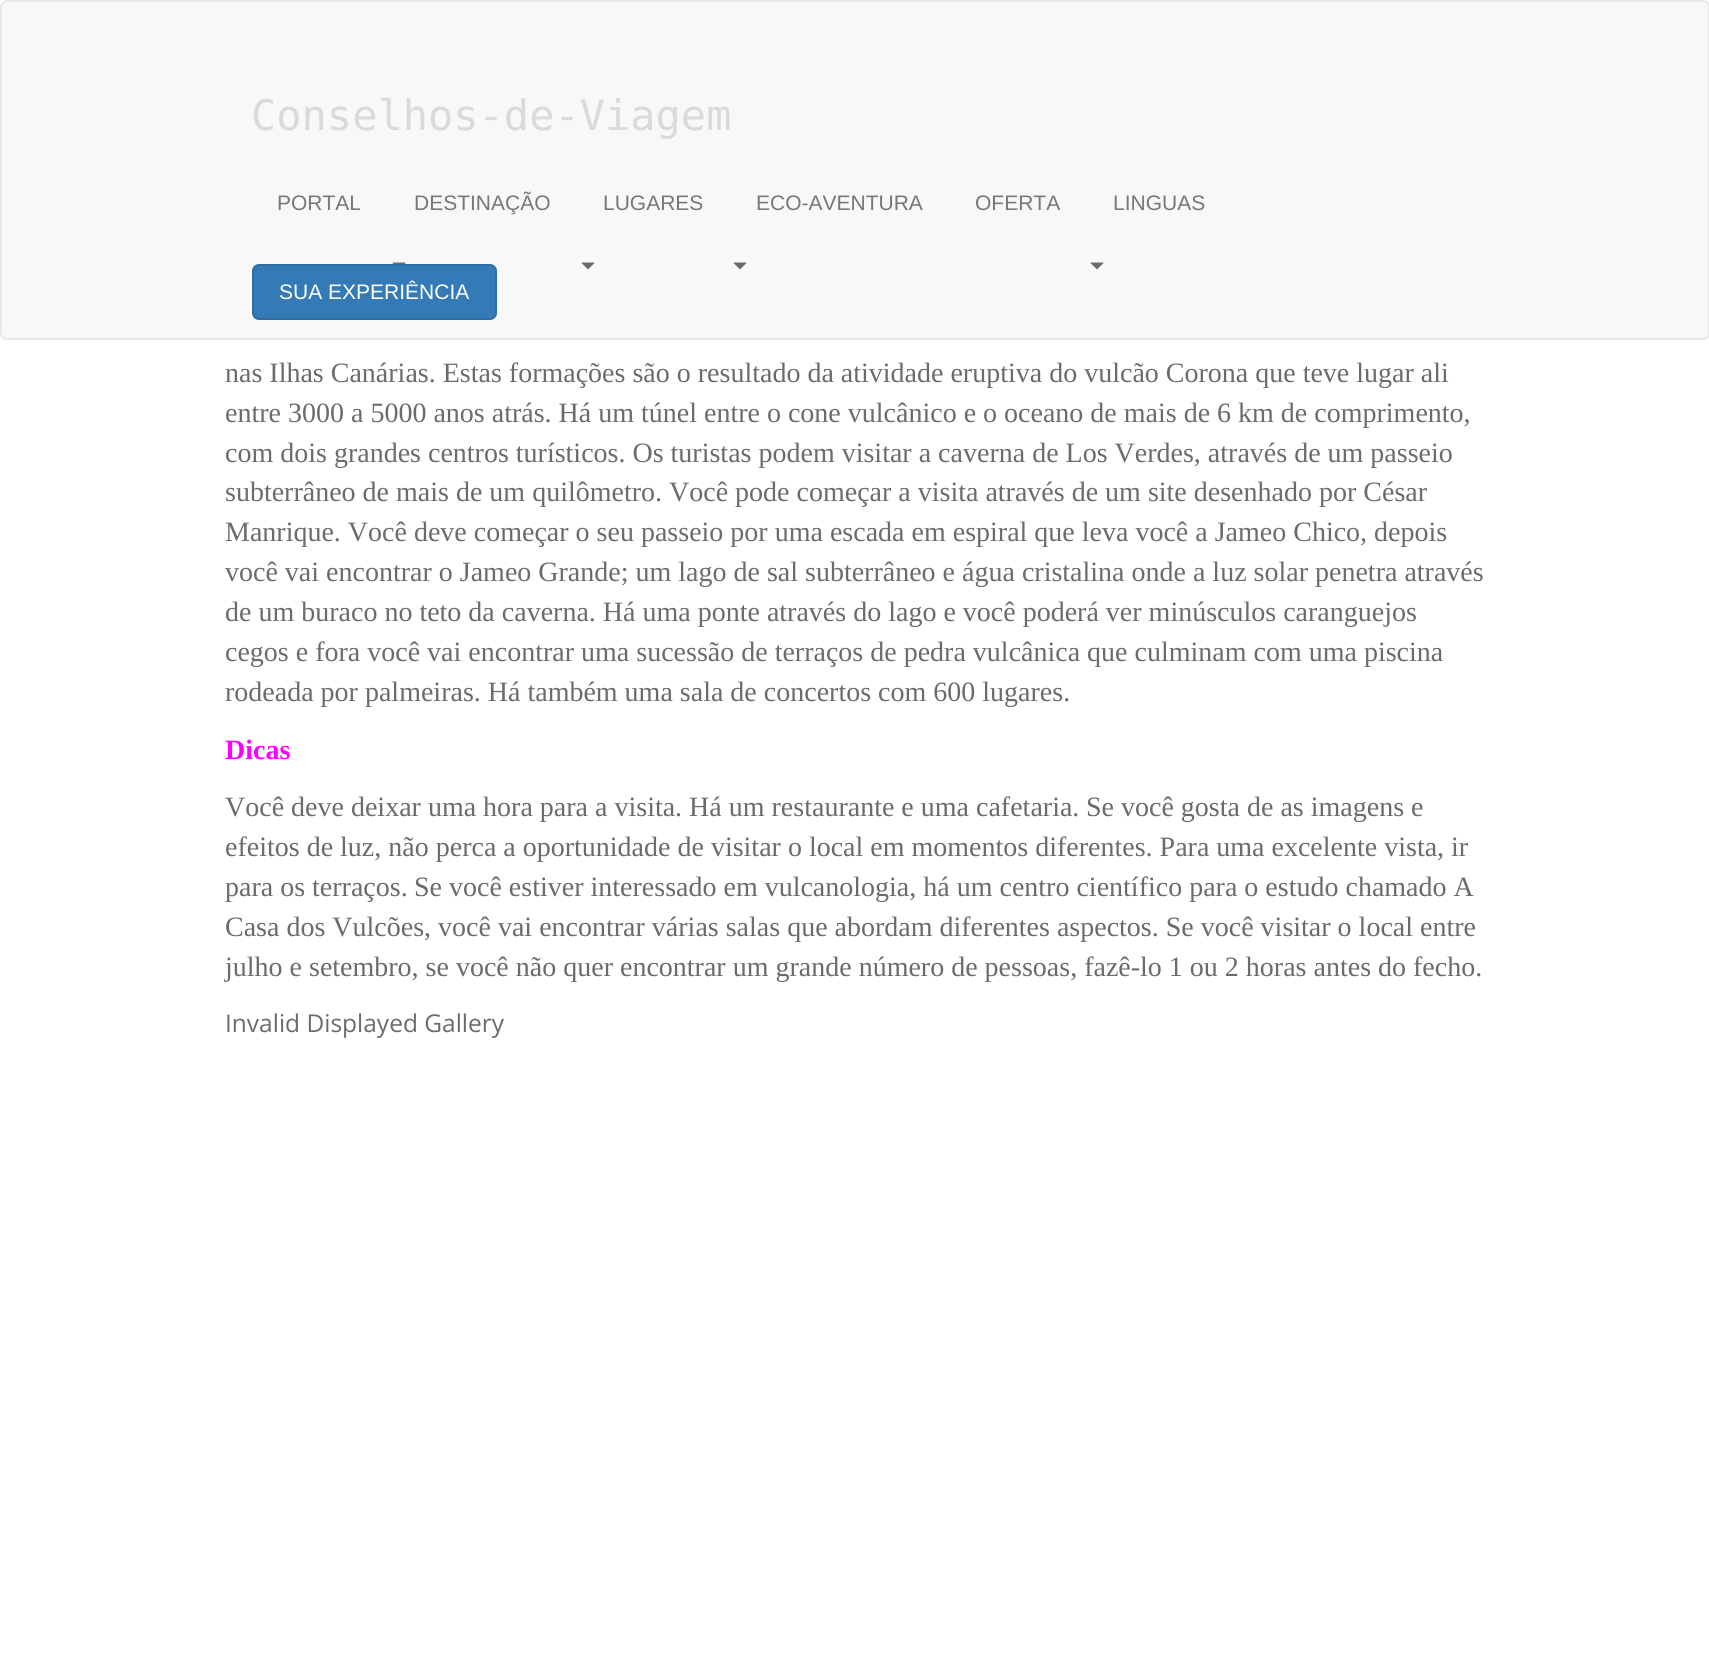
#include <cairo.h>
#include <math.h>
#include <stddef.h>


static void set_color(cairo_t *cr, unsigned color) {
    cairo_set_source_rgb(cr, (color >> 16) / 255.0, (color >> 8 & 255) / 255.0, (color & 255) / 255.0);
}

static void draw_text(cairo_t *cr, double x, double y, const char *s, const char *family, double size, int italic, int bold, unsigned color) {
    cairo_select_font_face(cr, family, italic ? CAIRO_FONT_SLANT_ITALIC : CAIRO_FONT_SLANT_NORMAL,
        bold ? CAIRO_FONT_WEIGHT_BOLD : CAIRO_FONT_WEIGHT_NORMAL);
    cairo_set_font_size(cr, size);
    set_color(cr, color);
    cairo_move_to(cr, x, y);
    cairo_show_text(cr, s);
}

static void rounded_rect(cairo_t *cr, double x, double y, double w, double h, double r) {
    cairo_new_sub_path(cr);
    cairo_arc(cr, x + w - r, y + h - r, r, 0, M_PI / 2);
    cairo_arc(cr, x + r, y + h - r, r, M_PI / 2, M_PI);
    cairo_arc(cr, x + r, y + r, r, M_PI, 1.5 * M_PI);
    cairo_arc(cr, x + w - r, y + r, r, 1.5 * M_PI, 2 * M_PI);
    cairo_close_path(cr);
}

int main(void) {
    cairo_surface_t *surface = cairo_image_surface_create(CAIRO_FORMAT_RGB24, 1709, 1669);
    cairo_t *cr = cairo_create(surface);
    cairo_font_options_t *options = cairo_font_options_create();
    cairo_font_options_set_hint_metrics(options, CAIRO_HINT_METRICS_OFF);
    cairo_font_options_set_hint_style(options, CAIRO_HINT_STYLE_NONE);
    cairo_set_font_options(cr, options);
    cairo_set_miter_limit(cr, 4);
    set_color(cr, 0xFFFFFF);
    cairo_paint(cr);
    set_color(cr, 0xF8F8F8);
    rounded_rect(cr, 1, 1, 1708, 338, 6);
    cairo_fill_preserve(cr);
    set_color(cr, 0xE7E7E7);
    cairo_stroke(cr);
    draw_text(cr, 251, 130, "Conselhos-de-Viagem", "DejaVu Sans Mono", 42, 0, 0, 0xDADADA);
    draw_text(cr, 277, 210, "PORTAL", "Liberation Sans", 21, 0, 0, 0x777777);
    draw_text(cr, 414, 210, "DESTINAÇÃO", "Liberation Sans", 21, 0, 0, 0x777777);
    set_color(cr, 0x6B6B6B);
    cairo_new_path(cr);
    cairo_move_to(cr, 392, 262.5);
    cairo_line_to(cr, 406, 262.5);
    cairo_line_to(cr, 399, 269.5);
    cairo_close_path(cr);
    cairo_fill(cr);
    draw_text(cr, 603, 210, "LUGARES", "Liberation Sans", 21, 0, 0, 0x777777);
    set_color(cr, 0x6B6B6B);
    cairo_new_path(cr);
    cairo_move_to(cr, 581, 262.5);
    cairo_line_to(cr, 595, 262.5);
    cairo_line_to(cr, 588, 269.5);
    cairo_close_path(cr);
    cairo_fill(cr);
    draw_text(cr, 756, 210, "ECO-AVENTURA", "Liberation Sans", 21, 0, 0, 0x777777);
    set_color(cr, 0x6B6B6B);
    cairo_new_path(cr);
    cairo_move_to(cr, 733, 262.5);
    cairo_line_to(cr, 747, 262.5);
    cairo_line_to(cr, 740, 269.5);
    cairo_close_path(cr);
    cairo_fill(cr);
    draw_text(cr, 975, 210, "OFERTA", "Liberation Sans", 21, 0, 0, 0x777777);
    draw_text(cr, 1113, 210, "LINGUAS", "Liberation Sans", 21, 0, 0, 0x777777);
    set_color(cr, 0x6B6B6B);
    cairo_new_path(cr);
    cairo_move_to(cr, 1090, 262.5);
    cairo_line_to(cr, 1104, 262.5);
    cairo_line_to(cr, 1097, 269.5);
    cairo_close_path(cr);
    cairo_fill(cr);
    set_color(cr, 0x337AB7);
    rounded_rect(cr, 253, 265, 243, 54, 6);
    cairo_fill_preserve(cr);
    set_color(cr, 0x2E6DA4);
    cairo_stroke(cr);
    draw_text(cr, 279, 299, "SUA EXPERIÊNCIA", "Liberation Sans", 21, 0, 0, 0xFFFFFF);
    draw_text(cr, 225, 382, "nas Ilhas Canárias. Estas formações são o resultado da atividade eruptiva do vulcão Corona que teve lugar ali", "Liberation Serif", 28, 0, 0, 0x6B6B6B);
    draw_text(cr, 225, 422, "entre 3000 a 5000 anos atrás. Há um túnel entre o cone vulcânico e o oceano de mais de 6 km de comprimento,", "Liberation Serif", 28, 0, 0, 0x6B6B6B);
    draw_text(cr, 225, 462, "com dois grandes centros turísticos. Os turistas podem visitar a caverna de Los Verdes, através de um passeio", "Liberation Serif", 28, 0, 0, 0x6B6B6B);
    draw_text(cr, 225, 501, "subterrâneo de mais de um quilômetro. Você pode começar a visita através de um site desenhado por César", "Liberation Serif", 28, 0, 0, 0x6B6B6B);
    draw_text(cr, 225, 541, "Manrique. Você deve começar o seu passeio por uma escada em espiral que leva você a Jameo Chico, depois", "Liberation Serif", 28, 0, 0, 0x6B6B6B);
    draw_text(cr, 225, 581, "você vai encontrar o Jameo Grande; um lago de sal subterrâneo e água cristalina onde a luz solar penetra através", "Liberation Serif", 28, 0, 0, 0x6B6B6B);
    draw_text(cr, 225, 621, "de um buraco no teto da caverna. Há uma ponte através do lago e você poderá ver minúsculos caranguejos", "Liberation Serif", 28, 0, 0, 0x6B6B6B);
    draw_text(cr, 225, 661, "cegos e fora você vai encontrar uma sucessão de terraços de pedra vulcânica que culminam com uma piscina", "Liberation Serif", 28, 0, 0, 0x6B6B6B);
    draw_text(cr, 225, 701, "rodeada por palmeiras. Há também uma sala de concertos com 600 lugares.", "Liberation Serif", 28, 0, 0, 0x6B6B6B);
    draw_text(cr, 225, 759, "Dicas", "Liberation Serif", 28, 0, 1, 0xFF00FF);
    draw_text(cr, 225, 816, "Você deve deixar uma hora para a visita. Há um restaurante e uma cafetaria.", "Liberation Serif", 28, 0, 0, 0x6B6B6B);
    draw_text(cr, 1086, 816, "Se você gosta de as imagens e", "Liberation Serif", 28, 0, 0, 0x6B6B6B);
    draw_text(cr, 225, 856, "efeitos de luz, não perca a oportunidade de visitar o local em momentos diferentes. Para uma excelente vista, ir", "Liberation Serif", 28, 0, 0, 0x6B6B6B);
    draw_text(cr, 225, 896, "para os terraços.", "Liberation Serif", 28, 0, 0, 0x6B6B6B);
    draw_text(cr, 414, 896, "Se você estiver interessado em vulcanologia, há um centro científico para o estudo chamado A", "Liberation Serif", 28, 0, 0, 0x6B6B6B);
    draw_text(cr, 225, 936, "Casa dos Vulcões, você vai encontrar várias salas que abordam diferentes aspectos. Se você visitar o local entre", "Liberation Serif", 28, 0, 0, 0x6B6B6B);
    draw_text(cr, 225, 976, "julho e setembro, se você não quer encontrar um grande número de pessoas, fazê-lo 1 ou 2 horas antes do fecho.", "Liberation Serif", 28, 0, 0, 0x6B6B6B);
    draw_text(cr, 225, 1032, "Invalid Displayed Gallery", "Open Sans", 24.5, 0, 0, 0x6B6B6B);
    cairo_surface_write_to_png(surface, "output.png");
    cairo_font_options_destroy(options);
    cairo_destroy(cr);
    cairo_surface_destroy(surface);
    return 0;
}
